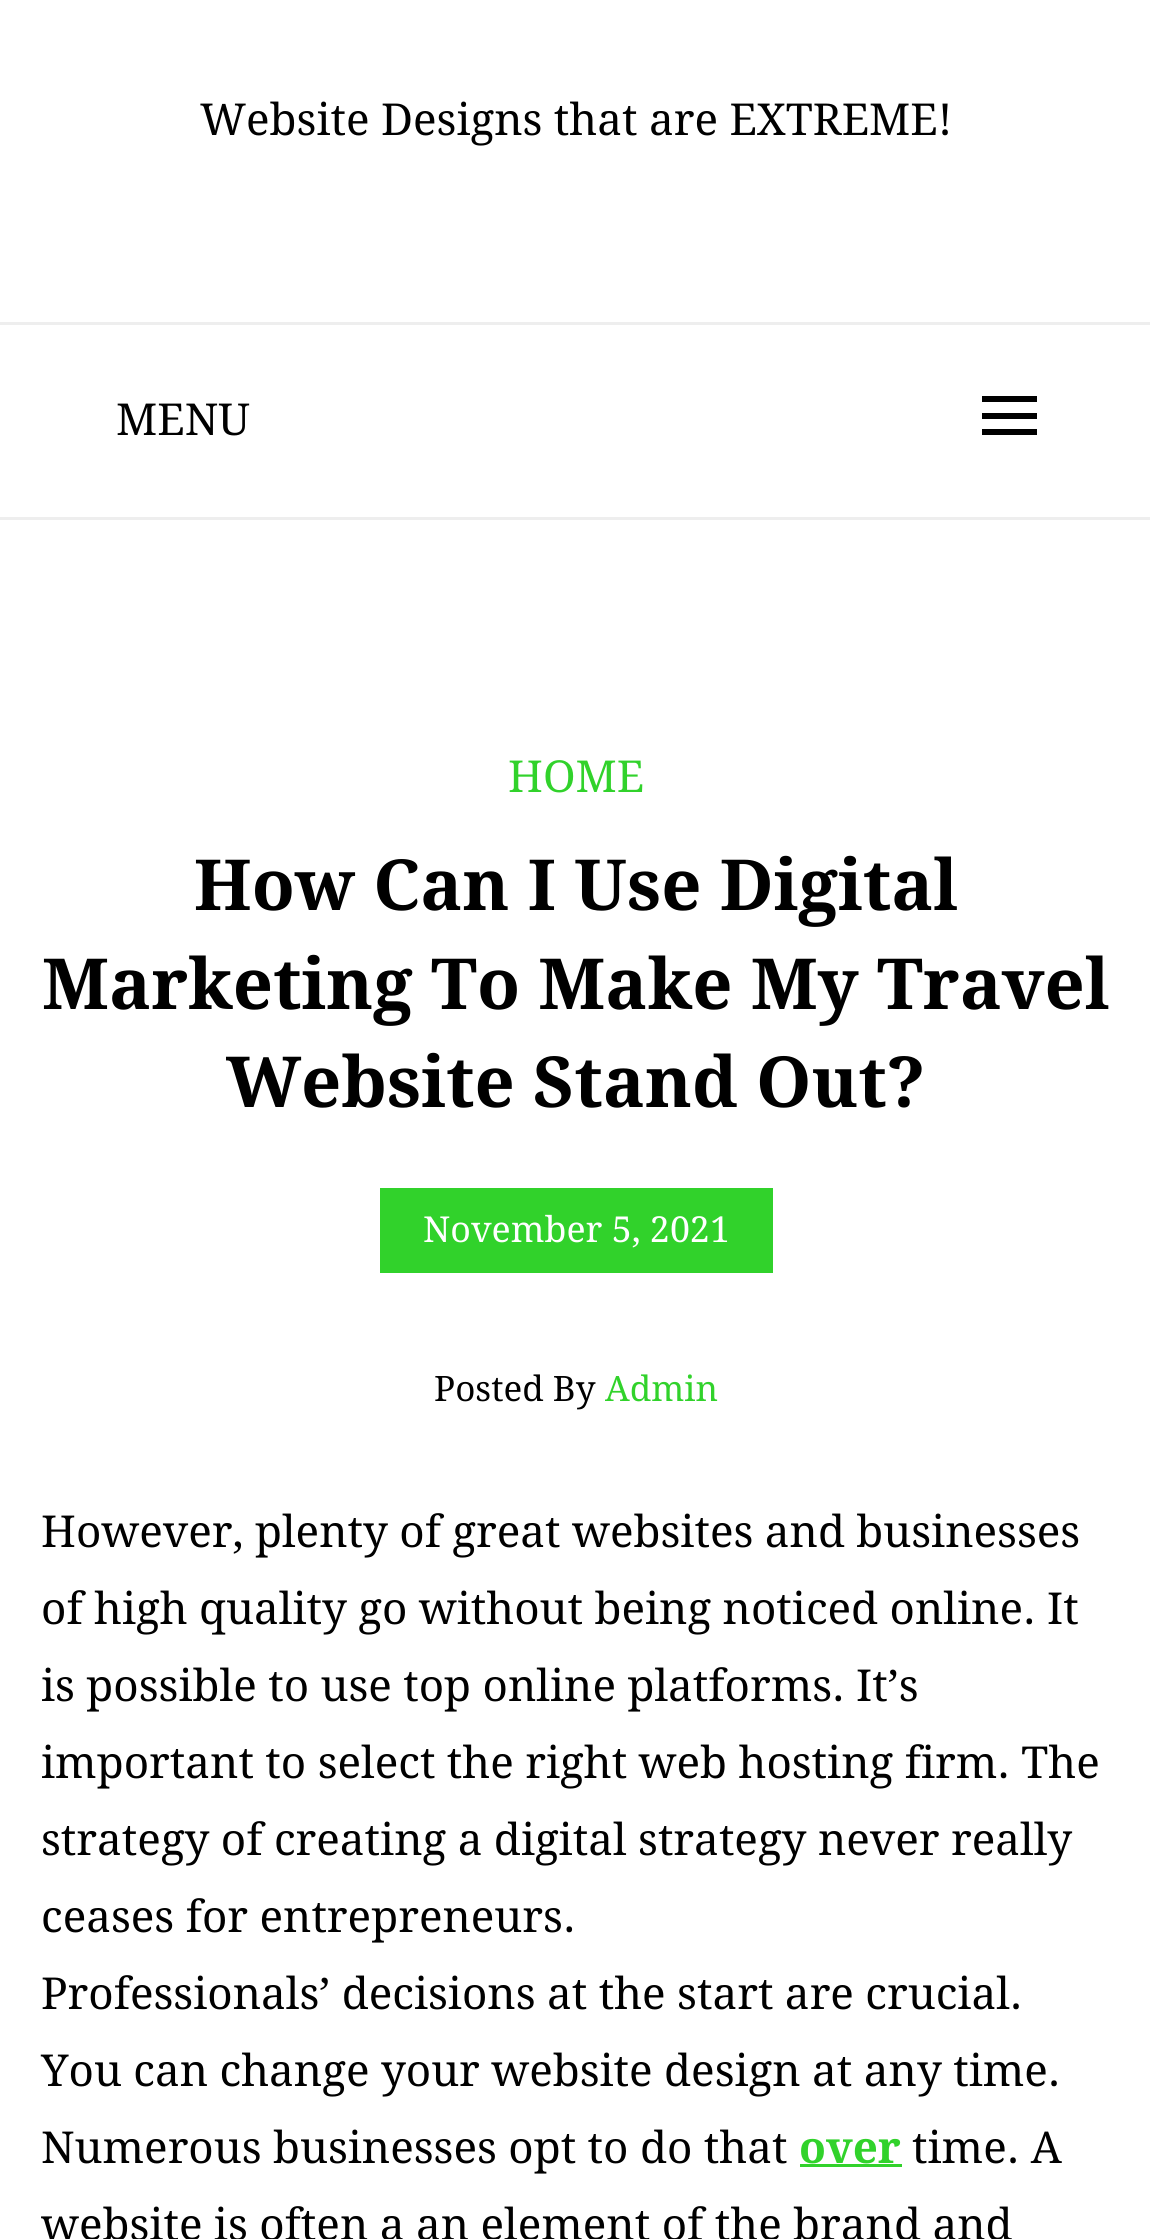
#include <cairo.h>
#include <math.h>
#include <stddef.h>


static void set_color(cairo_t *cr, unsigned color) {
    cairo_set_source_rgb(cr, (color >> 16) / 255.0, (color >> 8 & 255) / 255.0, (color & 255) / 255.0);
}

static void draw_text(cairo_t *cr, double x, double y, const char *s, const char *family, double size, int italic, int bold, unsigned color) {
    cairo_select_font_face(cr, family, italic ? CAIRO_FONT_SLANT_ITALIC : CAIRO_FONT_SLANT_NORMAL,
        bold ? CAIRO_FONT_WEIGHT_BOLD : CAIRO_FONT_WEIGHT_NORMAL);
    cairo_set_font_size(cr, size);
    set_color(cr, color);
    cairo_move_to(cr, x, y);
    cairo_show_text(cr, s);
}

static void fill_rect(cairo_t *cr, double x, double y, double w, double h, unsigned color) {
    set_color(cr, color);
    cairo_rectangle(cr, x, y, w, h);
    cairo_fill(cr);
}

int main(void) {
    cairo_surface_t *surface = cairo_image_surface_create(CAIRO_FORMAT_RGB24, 1150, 2239);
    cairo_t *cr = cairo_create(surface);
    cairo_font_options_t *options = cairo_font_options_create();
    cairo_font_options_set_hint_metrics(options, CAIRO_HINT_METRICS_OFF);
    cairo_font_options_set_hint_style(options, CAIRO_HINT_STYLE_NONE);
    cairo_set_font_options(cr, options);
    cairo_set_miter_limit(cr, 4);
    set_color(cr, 0xFFFFFF);
    cairo_paint(cr);
    draw_text(cr, 200, 135, "Website Designs that are EXTREME!", "Droid Serif", 44, 0, 0, 0x000000);
    fill_rect(cr, 0, 322, 1150, 3, 0xEEEEEE);
    fill_rect(cr, 0, 517, 1150, 3, 0xEEEEEE);
    fill_rect(cr, 982, 396, 55, 6, 0x000000);
    draw_text(cr, 116, 435, "MENU", "Droid Serif", 44, 0, 0, 0x000000);
    fill_rect(cr, 982, 413, 55, 6, 0x000000);
    fill_rect(cr, 982, 429, 55, 6, 0x000000);
    draw_text(cr, 508, 792, "HOME", "Droid Serif", 44, 0, 0, 0x31D22B);
    draw_text(cr, 194, 910, "How Can I Use Digital", "Droid Serif", 70.4, 0, 1, 0x000000);
    draw_text(cr, 42, 1009, "Marketing To Make My Travel", "Droid Serif", 70.4, 0, 1, 0x000000);
    draw_text(cr, 226, 1107, "Website Stand Out?", "Droid Serif", 70.4, 0, 1, 0x000000);
    fill_rect(cr, 380, 1188, 393, 85, 0x31D22B);
    draw_text(cr, 423, 1242, "November 5, 2021", "Droid Serif", 35.75, 0, 0, 0xFFFFFF);
    draw_text(cr, 434, 1401, "Posted By", "Droid Serif", 35, 0, 0, 0x000000);
    draw_text(cr, 605, 1401, "Admin", "Droid Serif", 35, 0, 0, 0x31D22B);
    draw_text(cr, 41, 1547, "However, plenty of great websites and businesses", "Droid Serif", 44, 0, 0, 0x000000);
    draw_text(cr, 41, 1624, "of high quality go without being noticed online. It", "Droid Serif", 44, 0, 0, 0x000000);
    draw_text(cr, 41, 1701, "is possible to use top online platforms. It’s", "Droid Serif", 44, 0, 0, 0x000000);
    draw_text(cr, 41, 1778, "important to select the right web hosting firm. The", "Droid Serif", 44, 0, 0, 0x000000);
    draw_text(cr, 41, 1855, "strategy of creating a digital strategy never really", "Droid Serif", 44, 0, 0, 0x000000);
    draw_text(cr, 41, 1932, "ceases for entrepreneurs.", "Droid Serif", 44, 0, 0, 0x000000);
    draw_text(cr, 41, 2009, "Professionals’ decisions at the start are crucial.", "Droid Serif", 44, 0, 0, 0x000000);
    draw_text(cr, 41, 2086, "You can change your website design at any time.", "Droid Serif", 44, 0, 0, 0x000000);
    draw_text(cr, 41, 2163, "Numerous businesses opt to do that", "Droid Serif", 44, 0, 0, 0x000000);
    draw_text(cr, 799, 2163, "over", "Droid Serif", 44, 0, 1, 0x31D22B);
    fill_rect(cr, 800, 2164, 102, 3, 0x31D22B);
    draw_text(cr, 912, 2163, "time. A", "Droid Serif", 44, 0, 0, 0x000000);
    draw_text(cr, 41, 2240, "website is often a an element of the brand and", "Droid Serif", 44, 0, 0, 0x000000);
    cairo_surface_write_to_png(surface, "output.png");
    cairo_font_options_destroy(options);
    cairo_destroy(cr);
    cairo_surface_destroy(surface);
    return 0;
}
